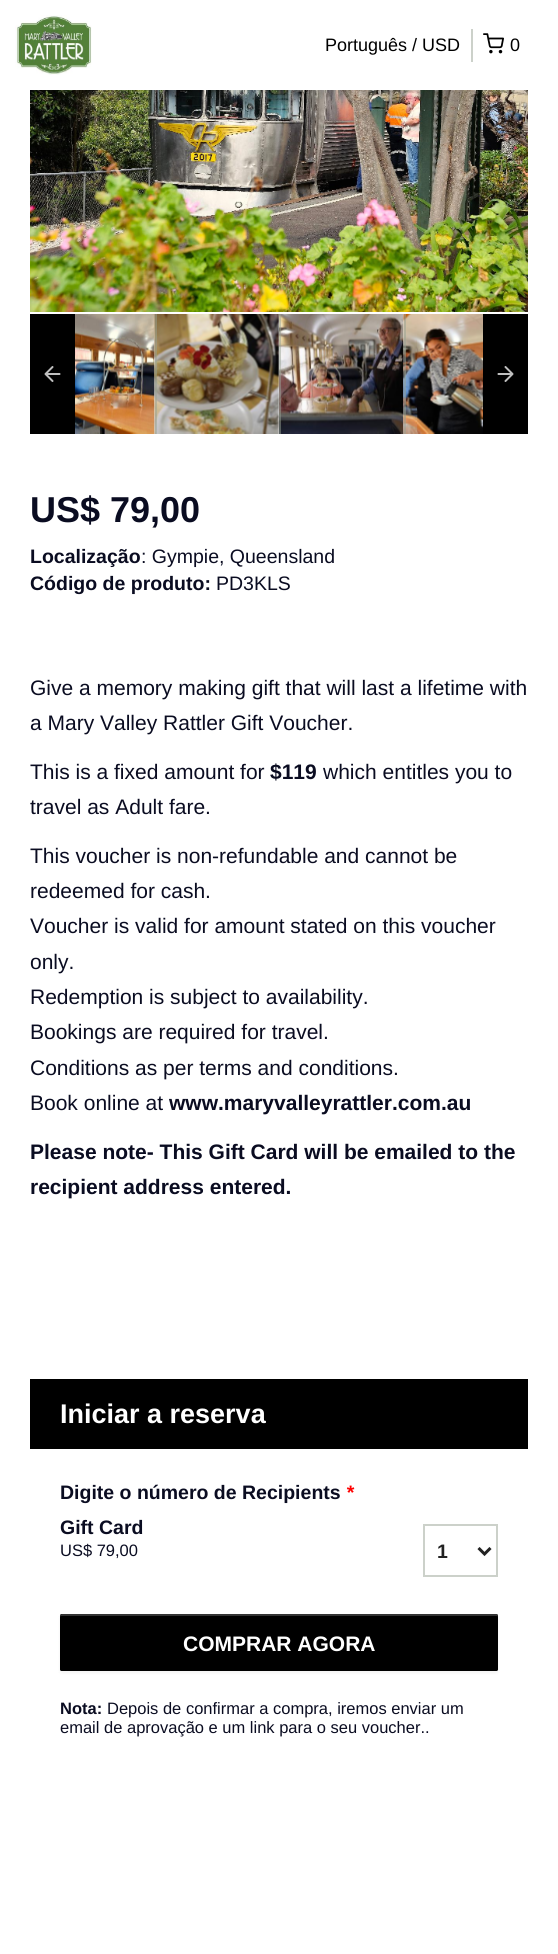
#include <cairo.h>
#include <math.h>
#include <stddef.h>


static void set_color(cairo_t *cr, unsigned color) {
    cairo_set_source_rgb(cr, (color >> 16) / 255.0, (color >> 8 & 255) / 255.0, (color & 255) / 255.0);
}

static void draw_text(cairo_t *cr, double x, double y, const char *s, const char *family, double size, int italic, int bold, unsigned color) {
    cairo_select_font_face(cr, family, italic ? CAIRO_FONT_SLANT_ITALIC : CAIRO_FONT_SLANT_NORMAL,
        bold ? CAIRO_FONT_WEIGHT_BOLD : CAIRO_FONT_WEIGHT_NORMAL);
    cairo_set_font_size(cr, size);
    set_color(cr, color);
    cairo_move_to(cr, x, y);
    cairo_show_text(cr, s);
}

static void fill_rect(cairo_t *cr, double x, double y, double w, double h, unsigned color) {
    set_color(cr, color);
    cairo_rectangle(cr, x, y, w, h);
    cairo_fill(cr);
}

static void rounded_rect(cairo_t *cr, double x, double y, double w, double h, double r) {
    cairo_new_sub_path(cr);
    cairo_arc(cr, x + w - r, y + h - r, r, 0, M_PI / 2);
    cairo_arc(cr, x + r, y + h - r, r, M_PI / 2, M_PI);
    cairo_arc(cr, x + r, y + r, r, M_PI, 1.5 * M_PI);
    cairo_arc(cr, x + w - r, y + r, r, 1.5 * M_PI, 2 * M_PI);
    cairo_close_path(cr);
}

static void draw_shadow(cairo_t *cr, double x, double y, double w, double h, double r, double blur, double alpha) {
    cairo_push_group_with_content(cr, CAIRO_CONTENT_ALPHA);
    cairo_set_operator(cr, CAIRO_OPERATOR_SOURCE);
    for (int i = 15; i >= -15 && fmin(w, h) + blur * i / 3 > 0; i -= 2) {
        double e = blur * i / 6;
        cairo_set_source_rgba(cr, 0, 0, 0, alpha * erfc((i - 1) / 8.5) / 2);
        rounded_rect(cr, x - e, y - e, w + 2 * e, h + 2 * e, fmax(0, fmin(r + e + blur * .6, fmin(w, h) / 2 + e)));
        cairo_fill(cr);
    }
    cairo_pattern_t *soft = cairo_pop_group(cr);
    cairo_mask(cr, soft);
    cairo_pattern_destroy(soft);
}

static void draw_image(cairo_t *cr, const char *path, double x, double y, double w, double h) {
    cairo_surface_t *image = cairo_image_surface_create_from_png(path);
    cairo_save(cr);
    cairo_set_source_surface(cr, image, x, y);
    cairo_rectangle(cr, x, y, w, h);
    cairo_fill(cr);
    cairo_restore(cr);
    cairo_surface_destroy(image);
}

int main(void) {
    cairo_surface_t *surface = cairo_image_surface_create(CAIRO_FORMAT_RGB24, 558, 1954);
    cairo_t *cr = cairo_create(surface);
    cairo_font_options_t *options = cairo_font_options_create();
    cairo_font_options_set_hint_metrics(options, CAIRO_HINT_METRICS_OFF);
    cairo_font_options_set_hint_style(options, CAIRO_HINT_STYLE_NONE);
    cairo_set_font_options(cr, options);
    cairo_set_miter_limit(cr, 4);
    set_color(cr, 0xFFFFFF);
    cairo_paint(cr);
    draw_image(cr, "assets/img1.png", 15, 15, 77, 60);
    fill_rect(cr, 471, 29, 2, 33, 0xCCD1CA);
    draw_text(cr, 325, 51, "Português /", "Liberation Sans", 18, 0, 0, 0x000000);
    draw_text(cr, 422, 51, "USD", "Liberation Sans", 18, 0, 0, 0x000000);
    draw_image(cr, "assets/img2.png", 483, 33, 21, 21);
    draw_text(cr, 510, 51, "0", "Liberation Sans", 18, 0, 0, 0x000000);
    draw_image(cr, "assets/img3.png", 30, 90, 498, 222);
    fill_rect(cr, 30, 314, 45, 120, 0x000000);
    draw_image(cr, "assets/img4.png", 44, 366, 17, 16);
    draw_image(cr, "assets/img5.png", 75, 314, 80, 120);
    draw_image(cr, "assets/img6.png", 154, 314, 125, 120);
    cairo_set_source_rgba(cr, 0.596, 0.639, 0.58, 0.5);
    cairo_rectangle(cr, 155, 314, 2, 120);
    cairo_fill(cr);
    draw_image(cr, "assets/img7.png", 279, 314, 125, 120);
    cairo_rectangle(cr, 279, 314, 2, 120);
    cairo_fill(cr);
    draw_image(cr, "assets/img8.png", 403, 314, 80, 120);
    cairo_rectangle(cr, 404, 314, 2, 120);
    cairo_fill(cr);
    fill_rect(cr, 483, 314, 45, 120, 0x000000);
    draw_image(cr, "assets/img9.png", 497, 366, 17, 16);
    draw_text(cr, 30, 522, "US$ 79,00", "Liberation Sans", 36, 0, 1, 0x0A0C21);
    draw_text(cr, 30, 563, "Localização", "Liberation Sans", 19.5, 0, 1, 0x0A0C21);
    draw_text(cr, 141, 563, ": Gympie, Queensland", "Liberation Sans", 19.5, 0, 0, 0x0A0C21);
    draw_text(cr, 30, 590, "Código de produto:", "Liberation Sans", 19.5, 0, 1, 0x0A0C21);
    draw_text(cr, 216, 590, "PD3KLS", "Liberation Sans", 19.5, 0, 0, 0x0A0C21);
    draw_text(cr, 30, 695, "Give a memory making gift that will last a lifetime with", "Liberation Sans", 21, 0, 0, 0x0A0C21);
    draw_text(cr, 30, 730, "a Mary Valley Rattler Gift Voucher.", "Liberation Sans", 21, 0, 0, 0x0A0C21);
    draw_text(cr, 30, 779, "This is a fixed amount for", "Liberation Sans", 21, 0, 0, 0x0A0C21);
    draw_text(cr, 270, 779, "$119", "Liberation Sans", 21, 0, 1, 0x0A0C21);
    draw_text(cr, 323, 779, "which entitles you to", "Liberation Sans", 21, 0, 0, 0x0A0C21);
    draw_text(cr, 30, 814, "travel as Adult fare.", "Liberation Sans", 21, 0, 0, 0x0A0C21);
    draw_text(cr, 30, 863, "This voucher is non-refundable and cannot be", "Liberation Sans", 21, 0, 0, 0x0A0C21);
    draw_text(cr, 30, 898, "redeemed for cash.", "Liberation Sans", 21, 0, 0, 0x0A0C21);
    draw_text(cr, 30, 933, "Voucher is valid for amount stated on this voucher", "Liberation Sans", 21, 0, 0, 0x0A0C21);
    draw_text(cr, 30, 969, "only.", "Liberation Sans", 21, 0, 0, 0x0A0C21);
    draw_text(cr, 30, 1004, "Redemption is subject to availability.", "Liberation Sans", 21, 0, 0, 0x0A0C21);
    draw_text(cr, 30, 1039, "Bookings are required for travel.", "Liberation Sans", 21, 0, 0, 0x0A0C21);
    draw_text(cr, 30, 1075, "Conditions as per terms and conditions.", "Liberation Sans", 21, 0, 0, 0x0A0C21);
    draw_text(cr, 30, 1110, "Book online at", "Liberation Sans", 21, 0, 0, 0x0A0C21);
    draw_text(cr, 169, 1110, "www.maryvalleyrattler.com.au", "Liberation Sans", 21, 0, 1, 0x0A0C21);
    draw_text(cr, 30, 1159, "Please note- This Gift Card will be emailed to the", "Liberation Sans", 21, 0, 1, 0x0A0C21);
    draw_text(cr, 30, 1194, "recipient address entered.", "Liberation Sans", 21, 0, 1, 0x0A0C21);
    fill_rect(cr, 30, 1379, 498, 70, 0x000000);
    draw_text(cr, 60, 1423, "Iniciar a reserva", "Liberation Sans", 27, 0, 1, 0xFFFFFF);
    draw_text(cr, 60, 1499, "Digite o número de Recipients", "Liberation Sans", 19.5, 0, 1, 0x0A0C21);
    draw_text(cr, 346, 1499, "*", "Liberation Sans", 19.5, 1, 1, 0xFF0000);
    draw_text(cr, 60, 1534, "Gift Card", "Liberation Sans", 19.5, 0, 1, 0x0A0C21);
    draw_text(cr, 60, 1556, "US$ 79,00", "Liberation Sans", 16.5, 0, 0, 0x0A0C21);
    cairo_rectangle(cr, 424, 1525, 73, 51);
    set_color(cr, 0xCCD1CA);
    cairo_stroke(cr);
    cairo_new_path(cr);
    cairo_move_to(cr, 478.5, 1548);
    cairo_line_to(cr, 484.5, 1554);
    cairo_line_to(cr, 490.5, 1548);
    set_color(cr, 0x222222);
    cairo_set_line_width(cr, 3);
    cairo_stroke(cr);
    draw_text(cr, 437, 1558, "1", "Liberation Sans", 19.5, 0, 1, 0x222222);
    set_color(cr, 0x000000);
    draw_shadow(cr, 60, 1616, 438, 57, 1.5, 1.5, 0.05);
    set_color(cr, 0x000000);
    rounded_rect(cr, 60, 1614, 438, 57, 1.5);
    cairo_fill(cr);
    cairo_set_source_rgba(cr, 1, 1, 1, 0.2);
    cairo_new_path(cr);
    cairo_move_to(cr, 62, 1616);
    cairo_line_to(cr, 496, 1616);
    cairo_curve_to(cr, 497, 1616, 498, 1616, 498, 1617);
    cairo_curve_to(cr, 498, 1616, 498, 1614, 496, 1614);
    cairo_line_to(cr, 62, 1614);
    cairo_line_to(cr, 60, 1615);
    cairo_line_to(cr, 60, 1617);
    cairo_curve_to(cr, 60, 1616, 61, 1616, 62, 1616);
    cairo_close_path(cr);
    cairo_fill(cr);
    draw_text(cr, 183, 1651, "COMPRAR AGORA", "Liberation Sans", 21, 0, 1, 0xFFFFFF);
    draw_text(cr, 60, 1714, "Nota:", "Liberation Sans", 16.5, 0, 1, 0x0A0C21);
    draw_text(cr, 107, 1714, "Depois de confirmar a compra, iremos enviar um", "Liberation Sans", 16.5, 0, 0, 0x0A0C21);
    draw_text(cr, 60, 1733, "email de aprovação e um link para o seu voucher..", "Liberation Sans", 16.5, 0, 0, 0x0A0C21);
    cairo_surface_write_to_png(surface, "output.png");
    cairo_font_options_destroy(options);
    cairo_destroy(cr);
    cairo_surface_destroy(surface);
    return 0;
}
